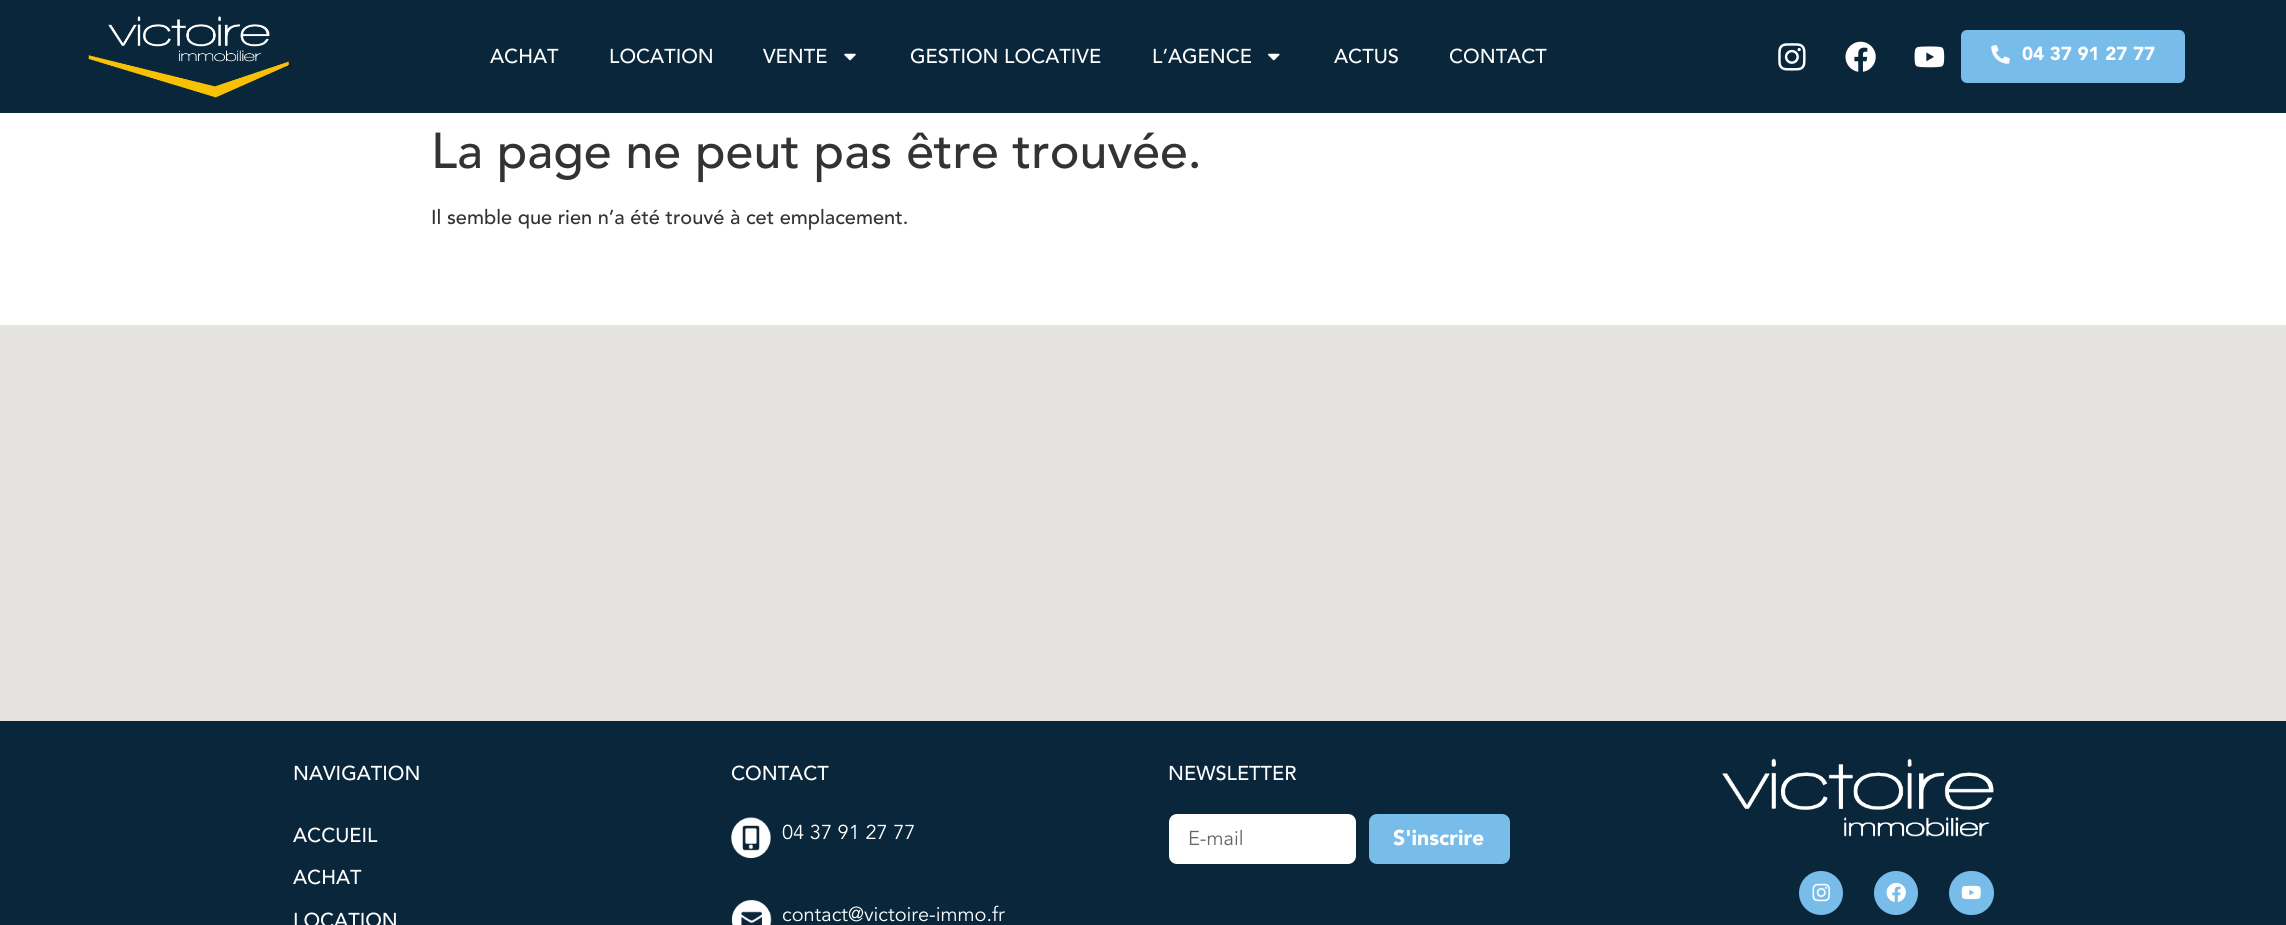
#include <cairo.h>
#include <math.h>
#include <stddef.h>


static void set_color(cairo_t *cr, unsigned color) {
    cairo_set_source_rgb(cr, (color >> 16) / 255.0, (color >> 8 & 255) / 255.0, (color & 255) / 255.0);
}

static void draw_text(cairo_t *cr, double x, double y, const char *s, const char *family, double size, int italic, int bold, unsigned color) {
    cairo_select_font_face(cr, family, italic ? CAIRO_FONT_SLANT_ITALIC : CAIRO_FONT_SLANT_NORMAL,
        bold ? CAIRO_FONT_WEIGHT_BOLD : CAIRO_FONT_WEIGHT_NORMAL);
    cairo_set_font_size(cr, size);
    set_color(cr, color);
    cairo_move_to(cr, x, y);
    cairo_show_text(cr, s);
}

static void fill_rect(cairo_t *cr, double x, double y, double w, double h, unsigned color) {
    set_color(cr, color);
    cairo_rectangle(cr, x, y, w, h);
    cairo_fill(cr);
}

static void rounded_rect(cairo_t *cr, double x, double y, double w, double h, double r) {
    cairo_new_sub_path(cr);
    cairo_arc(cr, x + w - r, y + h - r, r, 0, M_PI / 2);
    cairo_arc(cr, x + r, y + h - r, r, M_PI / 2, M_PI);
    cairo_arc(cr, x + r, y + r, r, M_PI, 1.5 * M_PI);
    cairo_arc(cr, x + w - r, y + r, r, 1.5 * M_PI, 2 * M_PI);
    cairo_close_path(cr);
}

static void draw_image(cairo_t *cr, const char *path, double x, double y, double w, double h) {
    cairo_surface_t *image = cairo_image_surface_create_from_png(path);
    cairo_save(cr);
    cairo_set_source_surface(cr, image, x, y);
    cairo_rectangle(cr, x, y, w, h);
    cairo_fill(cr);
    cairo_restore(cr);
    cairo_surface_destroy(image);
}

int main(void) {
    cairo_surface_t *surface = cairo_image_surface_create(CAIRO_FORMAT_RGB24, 2286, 925);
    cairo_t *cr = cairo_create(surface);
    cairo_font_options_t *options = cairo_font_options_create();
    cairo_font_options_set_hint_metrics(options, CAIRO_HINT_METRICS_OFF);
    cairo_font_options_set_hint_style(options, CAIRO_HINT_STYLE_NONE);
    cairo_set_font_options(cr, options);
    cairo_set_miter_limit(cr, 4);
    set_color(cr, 0xFFFFFF);
    cairo_paint(cr);
    fill_rect(cr, 0, 0, 2286, 113, 0x09263B);
    draw_image(cr, "assets/img1.png", 88, 16, 201, 82);
    draw_text(cr, 490, 63, "ACHAT", "Avenir Medium", 20, 0, 0, 0xFFFFFF);
    draw_text(cr, 609, 63, "LOCATION", "Avenir Medium", 20, 0, 0, 0xFFFFFF);
    draw_text(cr, 763, 63, "VENTE", "Avenir Medium", 20, 0, 0, 0xFFFFFF);
    draw_image(cr, "assets/img2.png", 844, 53, 12, 8);
    draw_text(cr, 910, 63, "GESTION LOCATIVE", "Avenir Medium", 20, 0, 0, 0xFFFFFF);
    draw_text(cr, 1152, 63, "L’AGENCE", "Avenir Medium", 20, 0, 0, 0xFFFFFF);
    draw_image(cr, "assets/img3.png", 1268, 53, 12, 8);
    draw_text(cr, 1334, 63, "ACTUS", "Avenir Medium", 20, 0, 0, 0xFFFFFF);
    draw_text(cr, 1449, 63, "CONTACT", "Avenir Medium", 20, 0, 0, 0xFFFFFF);
    draw_image(cr, "assets/img4.png", 1778, 43, 28, 28);
    draw_image(cr, "assets/img5.png", 1845, 41, 31, 31);
    draw_image(cr, "assets/img6.png", 1914, 46, 31, 22);
    set_color(cr, 0x78BCEA);
    rounded_rect(cr, 1961, 30, 224, 53, 6);
    cairo_fill(cr);
    draw_image(cr, "assets/img7.png", 1991, 45, 19, 19);
    draw_text(cr, 2022, 60, "04 37 91 27 77", "Avenir Black", 18.75, 0, 0, 0xFFFFFF);
    draw_text(cr, 431, 168, "La page ne peut pas être trouvée.", "Avenir Medium", 50, 0, 0, 0x333333);
    draw_text(cr, 431, 224, "Il semble que rien n’a été trouvé à cet emplacement.", "Avenir Medium", 20, 0, 0, 0x333333);
    fill_rect(cr, 0, 325, 2286, 396, 0xE5E3DF);
    fill_rect(cr, 0, 721, 2286, 204, 0x09263B);
    draw_text(cr, 293, 780, "NAVIGATION", "Avenir Medium", 20, 0, 0, 0xFFFFFF);
    draw_text(cr, 293, 842, "ACCUEIL", "Avenir Medium", 20, 0, 0, 0xFFFFFF);
    draw_text(cr, 293, 884, "ACHAT", "Avenir Medium", 20, 0, 0, 0xFFFFFF);
    draw_text(cr, 293, 927, "LOCATION", "Avenir Medium", 20, 0, 0, 0xFFFFFF);
    draw_text(cr, 731, 780, "CONTACT", "Avenir Medium", 20, 0, 0, 0xFFFFFF);
    draw_image(cr, "assets/img8.png", 731, 817, 40, 41);
    draw_text(cr, 782, 839, "04 37 91 27 77", "Avenir", 20, 0, 0, 0xFFFFFF);
    draw_image(cr, "assets/img9.png", 731, 900, 41, 25);
    draw_text(cr, 782, 921, "contact@victoire-immo.fr", "Avenir", 20, 0, 0, 0xFFFFFF);
    draw_text(cr, 1168, 780, "NEWSLETTER", "Avenir Medium", 20, 0, 0, 0xFFFFFF);
    rounded_rect(cr, 1169, 814, 187, 50, 8);
    cairo_fill(cr);
    draw_text(cr, 1188, 845, "E-mail", "Avenir", 20, 0, 0, 0x666666);
    set_color(cr, 0x78BCEA);
    rounded_rect(cr, 1369, 814, 141, 50, 8);
    cairo_fill(cr);
    draw_text(cr, 1393, 845, "S'inscrire", "Avenir Black", 21.25, 0, 0, 0xFFFFFF);
    draw_image(cr, "assets/img10.png", 1722, 758, 272, 79);
    set_color(cr, 0x78BCEA);
    cairo_arc(cr, 1821, 893, 22, 0, 2 * M_PI);
    cairo_fill(cr);
    draw_image(cr, "assets/img11.png", 1812, 883, 18, 19);
    cairo_arc(cr, 1896, 893, 22, 0, 2 * M_PI);
    cairo_fill(cr);
    draw_image(cr, "assets/img12.png", 1886, 883, 20, 19);
    rounded_rect(cr, 1949, 871, 45, 44, 22);
    cairo_fill(cr);
    draw_image(cr, "assets/img13.png", 1961, 885, 20, 15);
    cairo_surface_write_to_png(surface, "output.png");
    cairo_font_options_destroy(options);
    cairo_destroy(cr);
    cairo_surface_destroy(surface);
    return 0;
}
